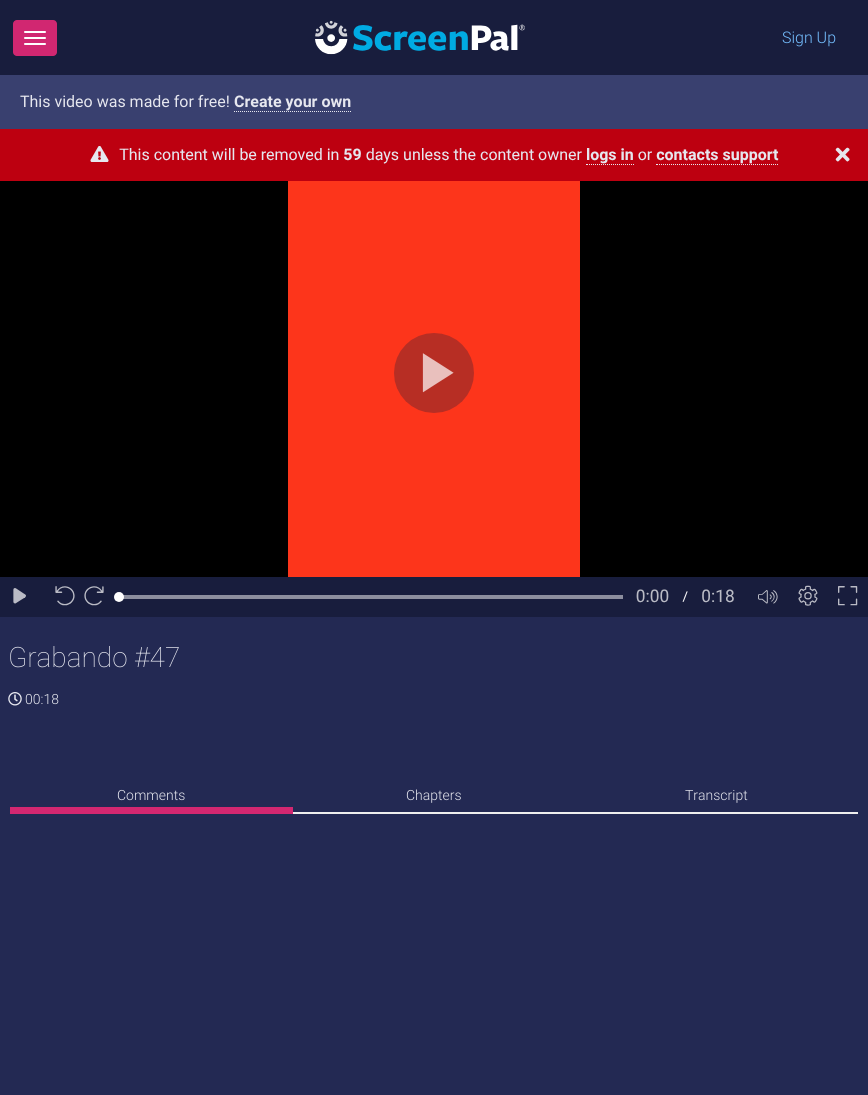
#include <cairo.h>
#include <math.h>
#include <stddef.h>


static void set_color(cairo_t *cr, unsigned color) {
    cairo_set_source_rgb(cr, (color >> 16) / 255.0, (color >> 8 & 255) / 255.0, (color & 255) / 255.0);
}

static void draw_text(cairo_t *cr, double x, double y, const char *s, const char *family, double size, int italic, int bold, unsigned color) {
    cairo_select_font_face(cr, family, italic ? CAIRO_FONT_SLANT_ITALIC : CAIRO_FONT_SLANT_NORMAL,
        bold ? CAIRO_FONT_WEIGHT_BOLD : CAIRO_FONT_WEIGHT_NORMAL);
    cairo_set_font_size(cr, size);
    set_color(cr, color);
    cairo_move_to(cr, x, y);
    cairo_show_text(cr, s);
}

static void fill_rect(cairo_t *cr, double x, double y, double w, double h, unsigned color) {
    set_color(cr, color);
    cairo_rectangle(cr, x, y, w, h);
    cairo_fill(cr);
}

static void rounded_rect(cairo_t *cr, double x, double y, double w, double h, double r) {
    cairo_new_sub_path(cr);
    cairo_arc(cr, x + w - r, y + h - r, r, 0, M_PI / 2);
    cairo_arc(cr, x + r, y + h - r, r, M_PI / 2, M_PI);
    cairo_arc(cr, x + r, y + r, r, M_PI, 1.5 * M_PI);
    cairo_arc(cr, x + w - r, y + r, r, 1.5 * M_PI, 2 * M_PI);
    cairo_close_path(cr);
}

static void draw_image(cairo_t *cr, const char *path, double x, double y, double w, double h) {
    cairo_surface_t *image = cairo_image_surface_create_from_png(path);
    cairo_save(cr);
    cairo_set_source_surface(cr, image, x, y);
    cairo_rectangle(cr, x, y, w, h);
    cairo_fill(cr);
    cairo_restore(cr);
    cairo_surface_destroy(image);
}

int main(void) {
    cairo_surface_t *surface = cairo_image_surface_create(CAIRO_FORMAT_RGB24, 868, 1095);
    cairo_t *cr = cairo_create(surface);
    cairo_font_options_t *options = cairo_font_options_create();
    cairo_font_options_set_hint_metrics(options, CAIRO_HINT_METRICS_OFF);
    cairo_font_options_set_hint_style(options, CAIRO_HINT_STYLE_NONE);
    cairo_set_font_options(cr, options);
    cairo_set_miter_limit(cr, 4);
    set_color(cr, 0x232953);
    cairo_paint(cr);
    fill_rect(cr, 0, 0, 868, 75, 0x181D3D);
    set_color(cr, 0xD12771);
    rounded_rect(cr, 13, 20, 44, 36, 4);
    cairo_fill(cr);
    set_color(cr, 0xFFFFFF);
    rounded_rect(cr, 24, 31, 22, 2, 1);
    cairo_fill(cr);
    rounded_rect(cr, 24, 37, 22, 2, 1);
    cairo_fill(cr);
    rounded_rect(cr, 24, 43, 22, 2, 1);
    cairo_fill(cr);
    draw_image(cr, "assets/img1.png", 315, 20, 210, 35);
    draw_text(cr, 782, 43, "Sign Up", "Roboto Light", 16, 0, 0, 0x74BEFF);
    fill_rect(cr, 0, 75, 868, 54, 0x39406F);
    draw_text(cr, 20, 107, "This video was made for free!", "Roboto", 16, 0, 0, 0xE6E7EF);
    draw_text(cr, 234, 107, "Create your own", "Roboto", 16, 0, 1, 0xE6E7EF);
    cairo_new_path(cr);
    cairo_move_to(cr, 234, 111.5);
    cairo_line_to(cr, 351, 111.5);
    cairo_set_line_width(cr, 1);
    cairo_set_dash(cr, (double[]){1, 1}, 2, 0);
    cairo_stroke(cr);
    draw_image(cr, "assets/img2.png", 0, 129, 868, 488);
    draw_text(cr, 8, 667, "Grabando #47", "Roboto Thin", 28, 0, 0, 0xE6E7EF);
    draw_image(cr, "assets/img3.png", 8, 692, 14, 14);
    draw_text(cr, 25, 704, "00:18", "Roboto Light", 14, 0, 0, 0xE6E7EF);
    fill_rect(cr, 10, 807, 283, 7, 0xD32771);
    draw_text(cr, 117, 800, "Comments", "Roboto Light", 14, 0, 0, 0xE6E7EF);
    fill_rect(cr, 293, 812, 565, 2, 0xEEEEEE);
    draw_text(cr, 406, 800, "Chapters", "Roboto Light", 14, 0, 0, 0xE6E7EF);
    draw_text(cr, 685, 800, "Transcript", "Roboto Light", 14, 0, 0, 0xE6E7EF);
    cairo_surface_write_to_png(surface, "output.png");
    cairo_font_options_destroy(options);
    cairo_destroy(cr);
    cairo_surface_destroy(surface);
    return 0;
}
